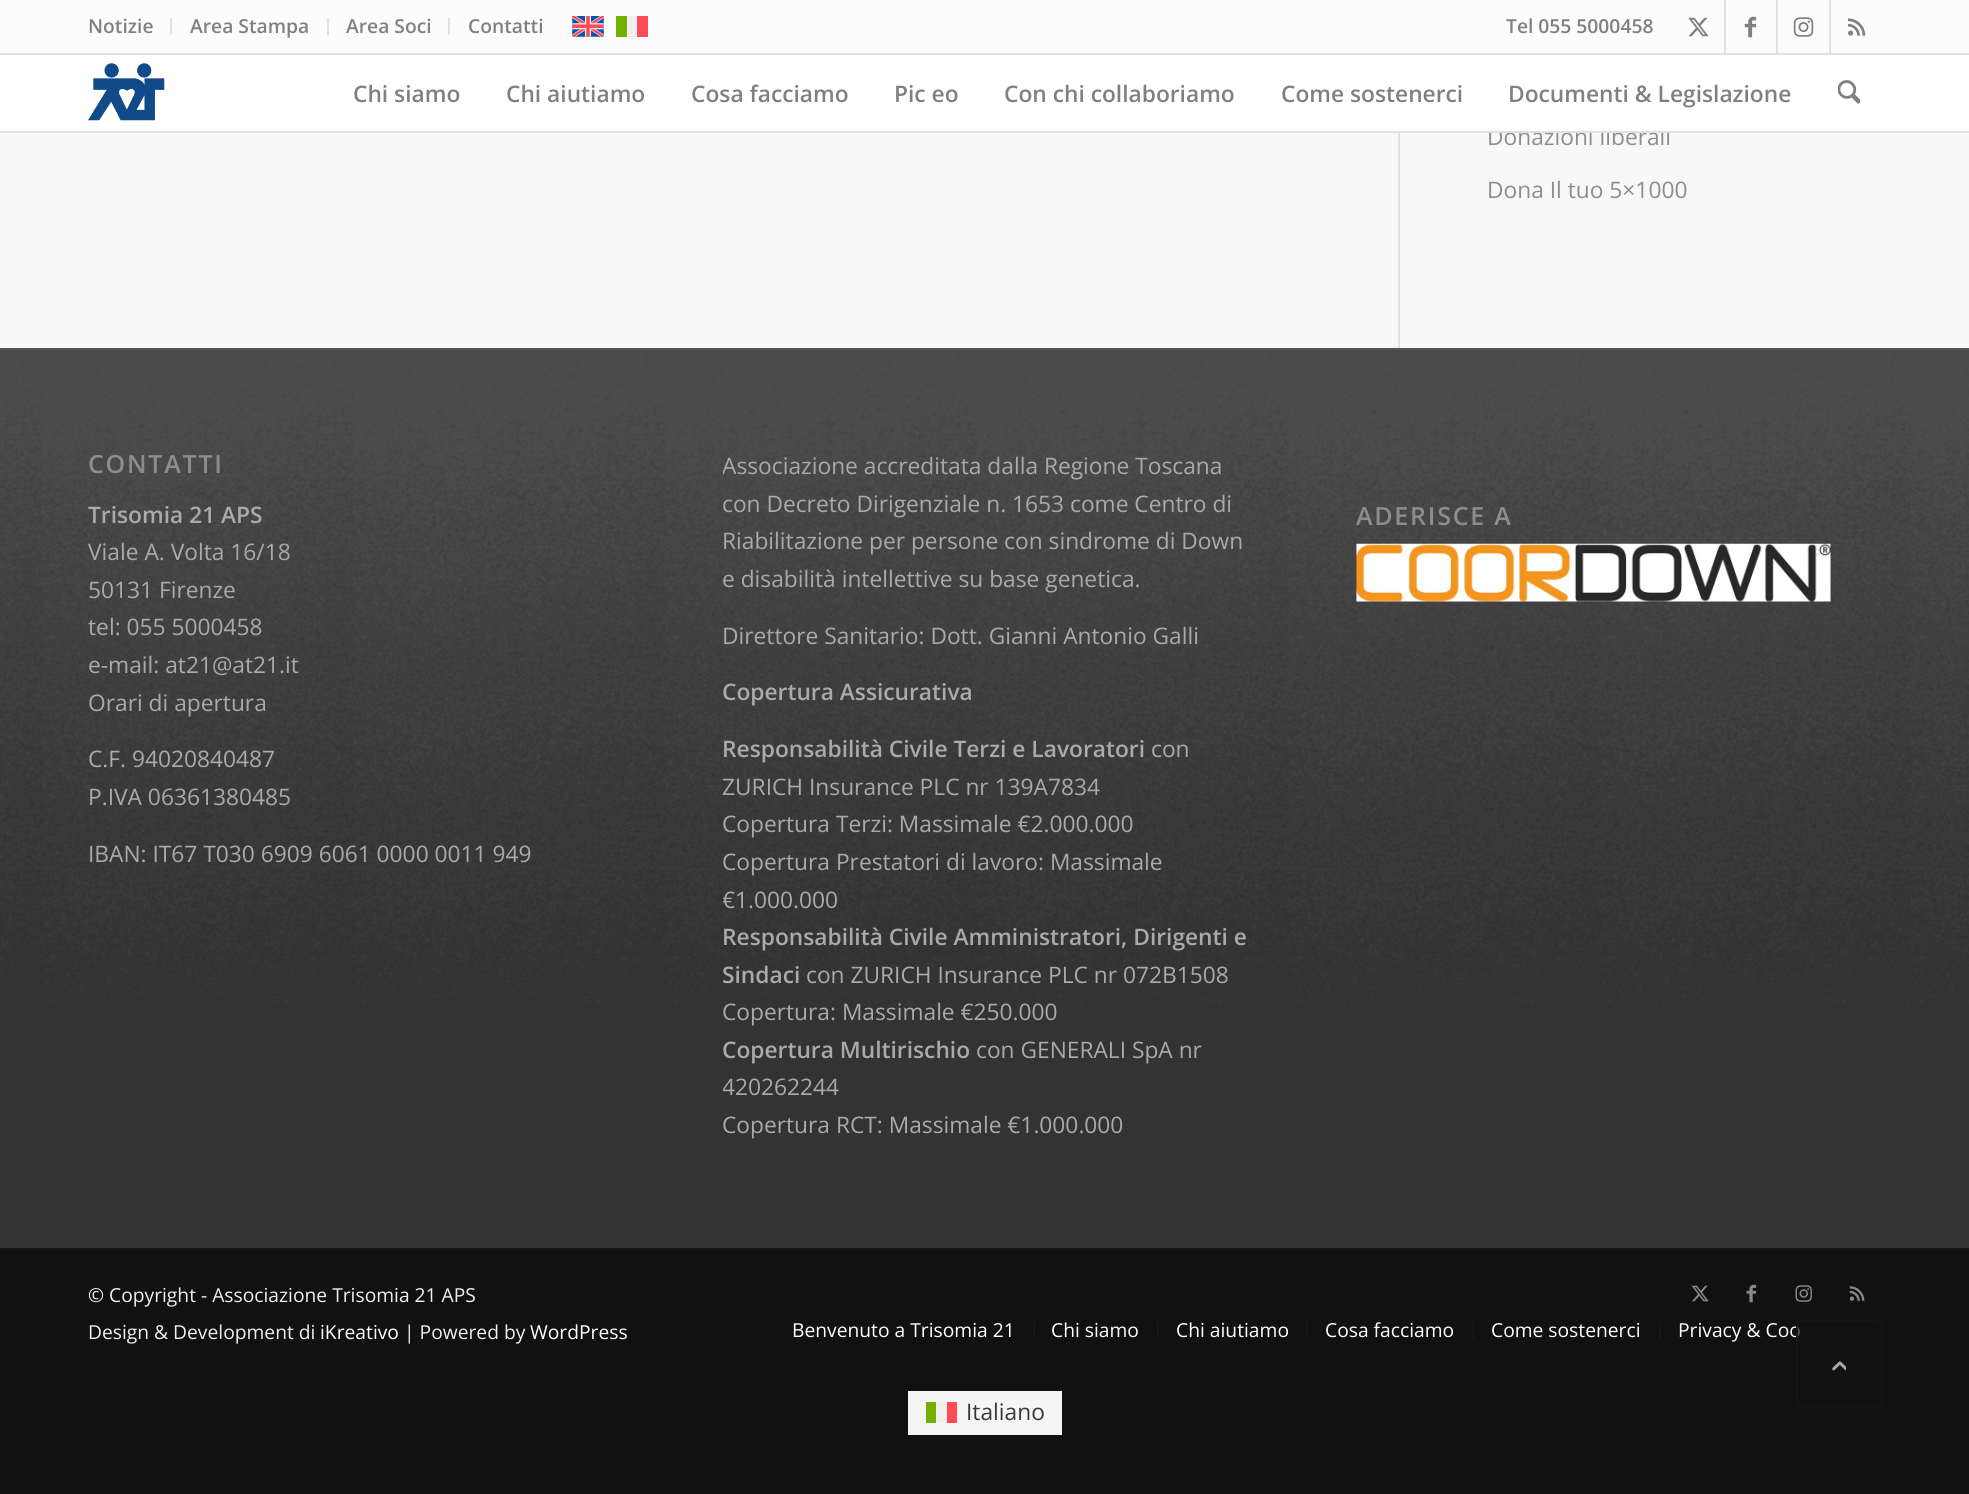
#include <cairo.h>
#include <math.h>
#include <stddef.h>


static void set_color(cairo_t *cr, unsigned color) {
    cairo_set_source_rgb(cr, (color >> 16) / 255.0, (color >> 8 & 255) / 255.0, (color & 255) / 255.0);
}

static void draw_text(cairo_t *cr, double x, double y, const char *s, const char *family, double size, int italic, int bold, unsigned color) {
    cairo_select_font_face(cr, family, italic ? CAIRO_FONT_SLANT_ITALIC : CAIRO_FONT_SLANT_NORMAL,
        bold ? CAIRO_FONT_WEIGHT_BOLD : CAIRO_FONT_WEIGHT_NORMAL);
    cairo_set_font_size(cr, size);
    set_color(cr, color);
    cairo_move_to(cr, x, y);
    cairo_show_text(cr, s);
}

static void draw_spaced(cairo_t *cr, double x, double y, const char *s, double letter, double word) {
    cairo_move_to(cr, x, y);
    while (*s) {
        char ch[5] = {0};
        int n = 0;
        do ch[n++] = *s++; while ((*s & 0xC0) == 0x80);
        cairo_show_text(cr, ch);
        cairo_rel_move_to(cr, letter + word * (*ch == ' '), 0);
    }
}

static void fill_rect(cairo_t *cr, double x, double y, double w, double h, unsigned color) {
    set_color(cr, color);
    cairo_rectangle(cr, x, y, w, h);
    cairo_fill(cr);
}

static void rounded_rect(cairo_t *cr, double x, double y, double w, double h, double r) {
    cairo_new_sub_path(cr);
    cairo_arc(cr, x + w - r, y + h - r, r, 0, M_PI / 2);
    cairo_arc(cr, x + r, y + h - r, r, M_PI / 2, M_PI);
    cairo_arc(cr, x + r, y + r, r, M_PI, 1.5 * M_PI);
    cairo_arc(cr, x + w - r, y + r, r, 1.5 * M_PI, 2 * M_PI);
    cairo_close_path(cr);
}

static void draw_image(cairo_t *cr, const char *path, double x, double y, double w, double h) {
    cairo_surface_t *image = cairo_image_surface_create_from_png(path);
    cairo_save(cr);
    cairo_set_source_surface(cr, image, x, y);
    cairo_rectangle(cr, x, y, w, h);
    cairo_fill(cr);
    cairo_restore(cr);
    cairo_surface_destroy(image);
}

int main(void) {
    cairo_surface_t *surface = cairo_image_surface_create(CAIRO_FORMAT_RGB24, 1969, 1494);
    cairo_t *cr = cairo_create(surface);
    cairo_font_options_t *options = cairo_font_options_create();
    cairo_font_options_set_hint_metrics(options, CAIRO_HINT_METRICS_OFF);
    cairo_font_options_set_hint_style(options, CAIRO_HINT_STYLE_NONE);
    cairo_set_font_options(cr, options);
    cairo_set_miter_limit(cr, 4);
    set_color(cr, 0x111111);
    cairo_paint(cr);
    fill_rect(cr, 0, 0, 1969, 53, 0xFCFCFC);
    fill_rect(cr, 0, 53, 1969, 2, 0xE1E1E1);
    fill_rect(cr, 170, 18, 2, 17, 0xE1E1E1);
    draw_text(cr, 88, 33, "Notizie", "Open Sans SemiBold", 19.25, 0, 0, 0x808080);
    fill_rect(cr, 327, 18, 2, 17, 0xE1E1E1);
    draw_text(cr, 190, 33, "Area Stampa", "Open Sans SemiBold", 19.25, 0, 0, 0x808080);
    fill_rect(cr, 448, 18, 2, 17, 0xE1E1E1);
    draw_text(cr, 346, 33, "Area Soci", "Open Sans SemiBold", 19.25, 0, 0, 0x808080);
    draw_text(cr, 468, 33, "Contatti", "Open Sans SemiBold", 19.25, 0, 0, 0x808080);
    draw_image(cr, "assets/img1.png", 572, 16, 32, 21);
    fill_rect(cr, 627, 16, 10, 21, 0xF0F0F0);
    fill_rect(cr, 637, 16, 11, 21, 0xFF4B55);
    fill_rect(cr, 616, 16, 11, 21, 0x73AF00);
    draw_text(cr, 1506, 33, "Tel 055 5000458", "Open Sans SemiBold", 19.25, 0, 0, 0x808080);
    fill_rect(cr, 1724, 0, 2, 53, 0xE1E1E1);
    draw_image(cr, "assets/img2.png", 1688, 17, 21, 20);
    fill_rect(cr, 1776, 0, 2, 53, 0xE1E1E1);
    draw_image(cr, "assets/img3.png", 1744, 16, 13, 22);
    fill_rect(cr, 1829, 0, 2, 53, 0xE1E1E1);
    draw_image(cr, "assets/img4.png", 1793, 17, 21, 20);
    draw_image(cr, "assets/img5.png", 1848, 18, 18, 18);
    fill_rect(cr, 0, 55, 1969, 293, 0xF8F8F8);
    fill_rect(cr, 1398, 55, 2, 293, 0xE1E1E1);
    draw_text(cr, 1487, 145, "Donazioni liberali", "Open Sans", 22.75, 0, 0, 0x8D8D8D);
    cairo_set_source_rgba(cr, 1, 1, 1, 0.95);
    cairo_rectangle(cr, 0, 55, 1969, 76);
    cairo_fill(cr);
    fill_rect(cr, 0, 131, 1969, 2, 0xE1E1E1);
    draw_image(cr, "assets/img6.png", 88, 63, 77, 58);
    draw_text(cr, 353, 102, "Chi siamo", "Open Sans SemiBold", 22.75, 0, 0, 0x808080);
    draw_text(cr, 506, 102, "Chi aiutiamo", "Open Sans SemiBold", 22.75, 0, 0, 0x808080);
    draw_text(cr, 691, 102, "Cosa facciamo", "Open Sans SemiBold", 22.75, 0, 0, 0x808080);
    draw_text(cr, 894, 102, "Pic eo", "Open Sans SemiBold", 22.75, 0, 0, 0x808080);
    draw_text(cr, 1004, 102, "Con chi collaboriamo", "Open Sans SemiBold", 22.75, 0, 0, 0x808080);
    draw_text(cr, 1281, 102, "Come sostenerci", "Open Sans SemiBold", 22.75, 0, 0, 0x808080);
    draw_text(cr, 1508, 102, "Documenti & Legislazione", "Open Sans SemiBold", 22.75, 0, 0, 0x808080);
    draw_image(cr, "assets/img7.png", 1838, 80, 22, 24);
    draw_text(cr, 1487, 198, "Dona Il tuo 5×1000", "Open Sans", 22.75, 0, 0, 0x8D8D8D);
    fill_rect(cr, 0, 350, 1969, 898, 0x333333);
    draw_image(cr, "assets/img8.png", 0, 350, 1969, 657);
    fill_rect(cr, 0, 348, 1969, 2, 0x555555);
    cairo_select_font_face(cr, "Open Sans SemiBold", CAIRO_FONT_SLANT_NORMAL, CAIRO_FONT_WEIGHT_NORMAL);
    cairo_set_font_size(cr, 25);
    set_color(cr, 0x8D8D8D);
    draw_spaced(cr, 88, 473, "CONTATTI", 1.75, 0);
    draw_text(cr, 88, 523, "Trisomia 21 APS", "Open Sans SemiBold", 22.75, 0, 0, 0xAAAAAA);
    draw_text(cr, 88, 560, "Viale A. Volta 16/18", "Open Sans", 22.75, 0, 0, 0xAAAAAA);
    draw_text(cr, 88, 598, "50131 Firenze", "Open Sans", 22.75, 0, 0, 0xAAAAAA);
    draw_text(cr, 88, 635, "tel: 055 5000458", "Open Sans", 22.75, 0, 0, 0xAAAAAA);
    draw_text(cr, 88, 673, "e-mail: at21@at21.it", "Open Sans", 22.75, 0, 0, 0xAAAAAA);
    draw_text(cr, 88, 711, "Orari di apertura", "Open Sans", 22.75, 0, 0, 0xAAAAAA);
    draw_text(cr, 88, 767, "C.F. 94020840487", "Open Sans", 22.75, 0, 0, 0xAAAAAA);
    draw_text(cr, 88, 805, "P.IVA 06361380485", "Open Sans", 22.75, 0, 0, 0xAAAAAA);
    draw_text(cr, 88, 862, "IBAN: IT67 T030 6909 6061 0000 0011 949", "Open Sans", 22.75, 0, 0, 0xAAAAAA);
    cairo_save(cr);
    cairo_rectangle(cr, 723, 429, 525, 716);
    cairo_clip(cr);
    draw_text(cr, 722, 474, "Associazione accreditata dalla Regione Toscana", "Open Sans", 22.75, 0, 0, 0xAAAAAA);
    cairo_restore(cr);
    draw_text(cr, 722, 512, "con Decreto Dirigenziale n. 1653 come Centro di", "Open Sans", 22.75, 0, 0, 0xAAAAAA);
    draw_text(cr, 722, 549, "Riabilitazione per persone con sindrome di Down", "Open Sans", 22.75, 0, 0, 0xAAAAAA);
    draw_text(cr, 722, 587, "e disabilità intellettive su base genetica.", "Open Sans", 22.75, 0, 0, 0xAAAAAA);
    draw_text(cr, 722, 644, "Direttore Sanitario: Dott. Gianni Antonio Galli", "Open Sans", 22.75, 0, 0, 0xAAAAAA);
    draw_text(cr, 722, 700, "Copertura Assicurativa", "Open Sans SemiBold", 22.75, 0, 0, 0xAAAAAA);
    draw_text(cr, 722, 757, "Responsabilità Civile Terzi e Lavoratori", "Open Sans SemiBold", 22.75, 0, 0, 0xAAAAAA);
    draw_text(cr, 1151, 757, "con", "Open Sans", 22.75, 0, 0, 0xAAAAAA);
    draw_text(cr, 722, 795, "ZURICH Insurance PLC nr 139A7834", "Open Sans", 22.75, 0, 0, 0xAAAAAA);
    draw_text(cr, 722, 832, "Copertura Terzi: Massimale €2.000.000", "Open Sans", 22.75, 0, 0, 0xAAAAAA);
    draw_text(cr, 722, 870, "Copertura Prestatori di lavoro: Massimale", "Open Sans", 22.75, 0, 0, 0xAAAAAA);
    cairo_save(cr);
    cairo_rectangle(cr, 723, 732, 525, 413);
    cairo_clip(cr);
    draw_text(cr, 722, 908, "€1.000.000", "Open Sans", 22.75, 0, 0, 0xAAAAAA);
    cairo_restore(cr);
    draw_text(cr, 722, 945, "Responsabilità Civile Amministratori, Dirigenti e", "Open Sans SemiBold", 22.75, 0, 0, 0xAAAAAA);
    draw_text(cr, 722, 983, "Sindaci", "Open Sans SemiBold", 22.75, 0, 0, 0xAAAAAA);
    draw_text(cr, 806, 983, "con ZURICH Insurance PLC nr 072B1508", "Open Sans", 22.75, 0, 0, 0xAAAAAA);
    draw_text(cr, 722, 1020, "Copertura: Massimale €250.000", "Open Sans", 22.75, 0, 0, 0xAAAAAA);
    draw_text(cr, 722, 1058, "Copertura Multirischio", "Open Sans SemiBold", 22.75, 0, 0, 0xAAAAAA);
    draw_text(cr, 976, 1058, "con GENERALI SpA nr", "Open Sans", 22.75, 0, 0, 0xAAAAAA);
    cairo_save(cr);
    cairo_rectangle(cr, 723, 732, 525, 413);
    cairo_clip(cr);
    draw_text(cr, 722, 1095, "420262244", "Open Sans", 22.75, 0, 0, 0xAAAAAA);
    cairo_restore(cr);
    draw_text(cr, 722, 1133, "Copertura RCT: Massimale €1.000.000", "Open Sans", 22.75, 0, 0, 0xAAAAAA);
    cairo_select_font_face(cr, "Open Sans SemiBold", CAIRO_FONT_SLANT_NORMAL, CAIRO_FONT_WEIGHT_NORMAL);
    cairo_set_font_size(cr, 25);
    set_color(cr, 0x8D8D8D);
    draw_spaced(cr, 1356, 525, "ADERISCE A", 1.75, 0);
    draw_image(cr, "assets/img9.png", 1356, 543, 475, 59);
    fill_rect(cr, 0, 1248, 1969, 2, 0x161616);
    draw_text(cr, 88, 1302, "© Copyright - Associazione Trisomia 21 APS", "Open Sans", 19.25, 0, 0, 0xEEEEEE);
    draw_text(cr, 88, 1339, "Design & Development di", "Open Sans", 19.25, 0, 0, 0xEEEEEE);
    draw_text(cr, 320, 1339, "iKreativo", "Open Sans", 19.25, 0, 0, 0xFFFFFF);
    draw_text(cr, 404, 1339, "| Powered by", "Open Sans", 19.25, 0, 0, 0xEEEEEE);
    draw_text(cr, 530, 1339, "WordPress", "Open Sans", 19.25, 0, 0, 0xFFFFFF);
    draw_image(cr, "assets/img10.png", 1691, 1285, 18, 17);
    draw_image(cr, "assets/img11.png", 1746, 1284, 11, 19);
    draw_image(cr, "assets/img12.png", 1795, 1285, 17, 17);
    draw_image(cr, "assets/img13.png", 1849, 1286, 16, 15);
    draw_text(cr, 792, 1337, "Benvenuto a Trisomia 21", "Open Sans", 19.25, 0, 0, 0xFFFFFF);
    fill_rect(cr, 1033, 1321, 2, 18, 0x161616);
    draw_text(cr, 1051, 1337, "Chi siamo", "Open Sans", 19.25, 0, 0, 0xFFFFFF);
    fill_rect(cr, 1157, 1321, 2, 18, 0x161616);
    draw_text(cr, 1176, 1337, "Chi aiutiamo", "Open Sans", 19.25, 0, 0, 0xFFFFFF);
    fill_rect(cr, 1306, 1321, 2, 18, 0x161616);
    draw_text(cr, 1325, 1337, "Cosa facciamo", "Open Sans", 19.25, 0, 0, 0xFFFFFF);
    fill_rect(cr, 1472, 1321, 2, 18, 0x161616);
    draw_text(cr, 1491, 1337, "Come sostenerci", "Open Sans", 19.25, 0, 0, 0xFFFFFF);
    fill_rect(cr, 1659, 1321, 2, 18, 0x161616);
    draw_text(cr, 1678, 1337, "Privacy & Coo", "Open Sans", 19.25, 0, 0, 0xFFFFFF);
    cairo_set_source_rgba(cr, 0.067, 0.067, 0.067, 0.7);
    rounded_rect(cr, 1796, 1320, 87, 87, 4);
    cairo_fill(cr);
    rounded_rect(cr, 1797, 1321, 85, 85, 3);
    cairo_set_source_rgba(cr, 0.086, 0.086, 0.086, 0.7);
    cairo_stroke(cr);
    draw_image(cr, "assets/img14.png", 1832, 1361, 14, 10);
    fill_rect(cr, 908, 1391, 154, 44, 0xF5F5F5);
    fill_rect(cr, 926, 1402, 10, 21, 0x73AF00);
    fill_rect(cr, 936, 1402, 11, 21, 0xF0F0F0);
    fill_rect(cr, 947, 1402, 10, 21, 0xFF4B55);
    draw_text(cr, 966, 1420, "Italiano", "Open Sans", 22.75, 0, 0, 0x393939);
    cairo_surface_write_to_png(surface, "output.png");
    cairo_font_options_destroy(options);
    cairo_destroy(cr);
    cairo_surface_destroy(surface);
    return 0;
}
